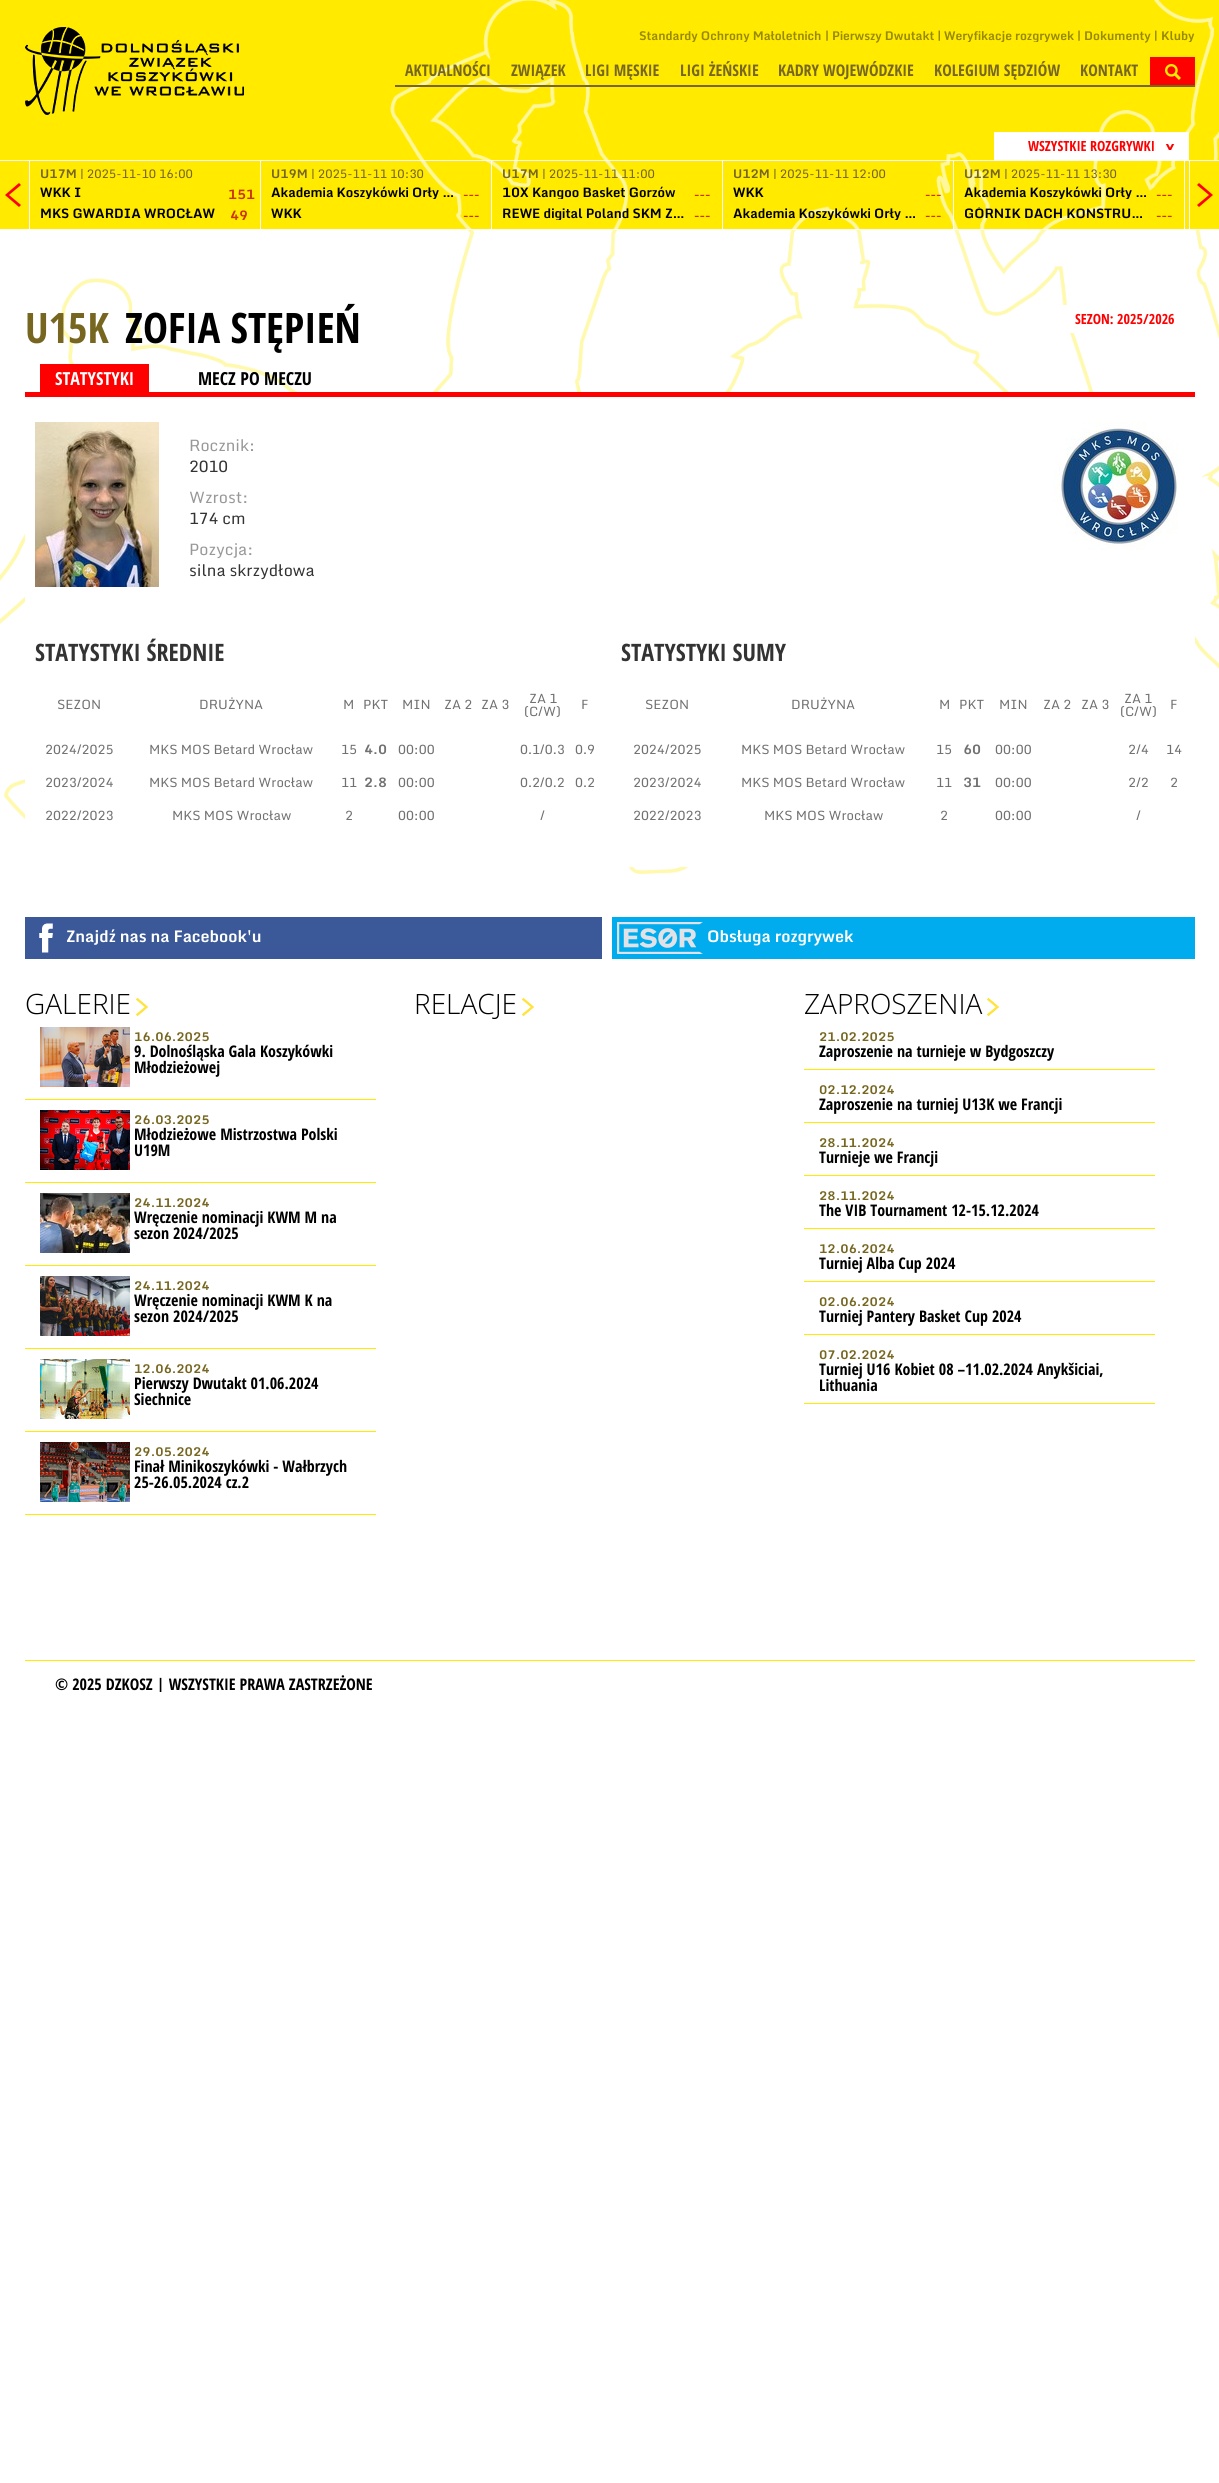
#include <cairo.h>
#include <math.h>
#include <stddef.h>


static void set_color(cairo_t *cr, unsigned color) {
    cairo_set_source_rgb(cr, (color >> 16) / 255.0, (color >> 8 & 255) / 255.0, (color & 255) / 255.0);
}

static void draw_text(cairo_t *cr, double x, double y, const char *s, const char *family, double size, int italic, int bold, unsigned color) {
    cairo_select_font_face(cr, family, italic ? CAIRO_FONT_SLANT_ITALIC : CAIRO_FONT_SLANT_NORMAL,
        bold ? CAIRO_FONT_WEIGHT_BOLD : CAIRO_FONT_WEIGHT_NORMAL);
    cairo_set_font_size(cr, size);
    set_color(cr, color);
    cairo_move_to(cr, x, y);
    cairo_show_text(cr, s);
}

static void fill_rect(cairo_t *cr, double x, double y, double w, double h, unsigned color) {
    set_color(cr, color);
    cairo_rectangle(cr, x, y, w, h);
    cairo_fill(cr);
}

static void draw_image(cairo_t *cr, const char *path, double x, double y, double w, double h) {
    cairo_surface_t *image = cairo_image_surface_create_from_png(path);
    cairo_save(cr);
    cairo_set_source_surface(cr, image, x, y);
    cairo_rectangle(cr, x, y, w, h);
    cairo_fill(cr);
    cairo_restore(cr);
    cairo_surface_destroy(image);
}

int main(void) {
    cairo_surface_t *surface = cairo_image_surface_create(CAIRO_FORMAT_RGB24, 1219, 2483);
    cairo_t *cr = cairo_create(surface);
    cairo_font_options_t *options = cairo_font_options_create();
    cairo_font_options_set_hint_metrics(options, CAIRO_HINT_METRICS_OFF);
    cairo_font_options_set_hint_style(options, CAIRO_HINT_STYLE_NONE);
    cairo_set_font_options(cr, options);
    cairo_set_miter_limit(cr, 4);
    set_color(cr, 0xFFFFFF);
    cairo_paint(cr);
    fill_rect(cr, 0, 0, 1219, 229, 0xFFEA00);
    draw_image(cr, "assets/img1.png", 0, 0, 1219, 874);
    draw_image(cr, "assets/img2.png", 25, 27, 219, 88);
    cairo_save(cr);
    cairo_rectangle(cr, 639, 30, 556, 12);
    cairo_clip(cr);
    draw_text(cr, 639, 40, "Standardy Ochrony Małoletnich", "Monda", 12, 0, 1, 0x978A00);
    cairo_restore(cr);
    draw_text(cr, 825, 40, "| Pierwszy Dwutakt |", "Monda", 12, 0, 1, 0x978A00);
    cairo_save(cr);
    cairo_rectangle(cr, 639, 30, 556, 12);
    cairo_clip(cr);
    draw_text(cr, 944, 40, "Weryfikacje rozgrywek", "Monda", 12, 0, 1, 0x978A00);
    cairo_restore(cr);
    draw_text(cr, 1077, 40, "| Dokumenty |", "Monda", 12, 0, 1, 0x978A00);
    cairo_save(cr);
    cairo_rectangle(cr, 639, 30, 556, 12);
    cairo_clip(cr);
    draw_text(cr, 1161, 40, "Kluby", "Monda", 12, 0, 1, 0x978A00);
    cairo_restore(cr);
    fill_rect(cr, 395, 85, 800, 2, 0x766620);
    draw_text(cr, 405, 76, "AKTUALNOŚCI", "Open Sans Condensed", 16, 0, 1, 0x766620);
    draw_text(cr, 511, 76, "ZWIĄZEK", "Open Sans Condensed", 16, 0, 1, 0x766620);
    draw_text(cr, 585, 76, "LIGI MĘSKIE", "Open Sans Condensed", 16, 0, 1, 0x766620);
    draw_text(cr, 680, 76, "LIGI ŻEŃSKIE", "Open Sans Condensed", 16, 0, 1, 0x766620);
    draw_text(cr, 778, 76, "KADRY WOJEWÓDZKIE", "Open Sans Condensed", 16, 0, 1, 0x766620);
    draw_text(cr, 934, 76, "KOLEGIUM SĘDZIÓW", "Open Sans Condensed", 16, 0, 1, 0x766620);
    draw_text(cr, 1080, 76, "KONTAKT", "Open Sans Condensed", 16, 0, 1, 0x766620);
    draw_image(cr, "assets/img3.png", 1150, 57, 45, 28);
    fill_rect(cr, 994, 132, 195, 28, 0xFFFFFF);
    draw_text(cr, 1028, 151, "WSZYSTKIE ROZGRYWKI", "Open Sans Condensed", 14, 0, 1, 0xFF0000);
    draw_image(cr, "assets/img4.png", 1155, 142, 20, 9);
    draw_image(cr, "assets/img5.png", 0, 160, 30, 70);
    fill_rect(cr, 30, 160, 1159, 1, 0xFFFFFF);
    fill_rect(cr, 260, 160, 1, 70, 0xFFFFFF);
    draw_text(cr, 40, 178, "U17M", "Monda", 12, 0, 1, 0x766620);
    draw_text(cr, 80, 178, "| 2025-11-10 16:00", "Monda", 12, 0, 0, 0x766620);
    draw_text(cr, 40, 197, "WKK I", "Monda", 13, 0, 1, 0x000000);
    draw_text(cr, 228, 199, "151", "Monda", 13, 0, 1, 0xCC3300);
    draw_text(cr, 40, 218, "MKS GWARDIA WROCŁAW", "Monda", 13, 0, 1, 0x000000);
    draw_text(cr, 230, 220, "49", "Monda", 13, 0, 1, 0xCC3300);
    fill_rect(cr, 491, 160, 1, 70, 0xFFFFFF);
    fill_rect(cr, 466, 229, 7, 1, 0xFFFFFF);
    draw_text(cr, 271, 178, "U19M", "Monda", 12, 0, 1, 0x766620);
    draw_text(cr, 311, 178, "| 2025-11-11 10:30", "Monda", 12, 0, 0, 0x766620);
    cairo_save(cr);
    cairo_rectangle(cr, 271, 186, 185, 13);
    cairo_clip(cr);
    draw_text(cr, 271, 197, "Akademia Koszykówki Orły …", "Monda", 13, 0, 1, 0x000000);
    cairo_restore(cr);
    draw_text(cr, 463, 199, "---", "Monda", 13, 0, 1, 0xCC3300);
    draw_text(cr, 271, 218, "WKK", "Monda", 13, 0, 1, 0x000000);
    draw_text(cr, 463, 220, "---", "Monda", 13, 0, 1, 0xCC3300);
    fill_rect(cr, 722, 160, 1, 70, 0xFFFFFF);
    fill_rect(cr, 613, 229, 5, 1, 0xFFFFFF);
    draw_text(cr, 502, 178, "U17M", "Monda", 12, 0, 1, 0x766620);
    draw_text(cr, 542, 178, "| 2025-11-11 11:00", "Monda", 12, 0, 0, 0x766620);
    cairo_save(cr);
    cairo_rectangle(cr, 502, 186, 185, 13);
    cairo_clip(cr);
    draw_text(cr, 502, 197, "10X Kangoo Basket Gorzów", "Monda", 13, 0, 1, 0x000000);
    cairo_restore(cr);
    draw_text(cr, 694, 199, "---", "Monda", 13, 0, 1, 0xCC3300);
    cairo_save(cr);
    cairo_rectangle(cr, 502, 207, 185, 13);
    cairo_clip(cr);
    draw_text(cr, 502, 218, "REWE digital Poland SKM Z…", "Monda", 13, 0, 1, 0x000000);
    cairo_restore(cr);
    draw_text(cr, 694, 220, "---", "Monda", 13, 0, 1, 0xCC3300);
    fill_rect(cr, 953, 160, 1, 70, 0xFFFFFF);
    fill_rect(cr, 791, 229, 69, 1, 0xFFFFFF);
    draw_text(cr, 733, 178, "U12M", "Monda", 12, 0, 1, 0x766620);
    draw_text(cr, 773, 178, "| 2025-11-11 12:00", "Monda", 12, 0, 0, 0x766620);
    draw_text(cr, 733, 197, "WKK", "Monda", 13, 0, 1, 0x000000);
    draw_text(cr, 925, 199, "---", "Monda", 13, 0, 1, 0xCC3300);
    cairo_save(cr);
    cairo_rectangle(cr, 733, 207, 185, 13);
    cairo_clip(cr);
    draw_text(cr, 733, 218, "Akademia Koszykówki Orły …", "Monda", 13, 0, 1, 0x000000);
    cairo_restore(cr);
    draw_text(cr, 925, 220, "---", "Monda", 13, 0, 1, 0xCC3300);
    fill_rect(cr, 1184, 160, 1, 70, 0xFFFFFF);
    fill_rect(cr, 954, 229, 94, 1, 0xFFFFFF);
    draw_text(cr, 964, 178, "U12M", "Monda", 12, 0, 1, 0x766620);
    draw_text(cr, 1004, 178, "| 2025-11-11 13:30", "Monda", 12, 0, 0, 0x766620);
    cairo_save(cr);
    cairo_rectangle(cr, 964, 186, 185, 13);
    cairo_clip(cr);
    draw_text(cr, 964, 197, "Akademia Koszykówki Orły …", "Monda", 13, 0, 1, 0x000000);
    cairo_restore(cr);
    draw_text(cr, 1156, 199, "---", "Monda", 13, 0, 1, 0xCC3300);
    cairo_save(cr);
    cairo_rectangle(cr, 964, 207, 185, 13);
    cairo_clip(cr);
    draw_text(cr, 964, 218, "GÓRNIK DACH KONSTRU…", "Monda", 13, 0, 1, 0x000000);
    cairo_restore(cr);
    draw_text(cr, 1156, 220, "---", "Monda", 13, 0, 1, 0xCC3300);
    draw_image(cr, "assets/img6.png", 1189, 160, 30, 70);
    draw_text(cr, 25, 343, "U15K", "Open Sans Condensed", 42, 0, 1, 0x766620);
    draw_text(cr, 125, 343, "ZOFIA STĘPIEŃ", "Open Sans Condensed", 42, 0, 1, 0x000000);
    fill_rect(cr, 1063, 305, 12, 28, 0xFFFFFF);
    draw_text(cr, 1075, 324, "SEZON: 2025/2026", "Open Sans Condensed", 14, 0, 1, 0xFF0000);
    fill_rect(cr, 25, 392, 1170, 5, 0xFF0000);
    fill_rect(cr, 40, 364, 109, 28, 0xFF0000);
    draw_text(cr, 55, 385, "STATYSTYKI", "Open Sans Condensed", 18, 0, 1, 0xFFFFFF);
    draw_text(cr, 198, 385, "MECZ PO MECZU", "Open Sans Condensed", 18, 0, 1, 0x000000);
    fill_rect(cr, 25, 397, 1170, 470, 0xFFFFFF);
    draw_image(cr, "assets/img7.png", 35, 422, 124, 165);
    draw_text(cr, 189, 451, "Rocznik:", "Monda", 16, 0, 0, 0x989898);
    draw_text(cr, 189, 472, "2010", "Monda", 16, 0, 0, 0x333333);
    draw_text(cr, 189, 503, "Wzrost:", "Monda", 16, 0, 0, 0x989898);
    draw_text(cr, 189, 524, "174 cm", "Monda", 16, 0, 0, 0x333333);
    draw_text(cr, 189, 555, "Pozycja:", "Monda", 16, 0, 0, 0x989898);
    draw_text(cr, 189, 576, "silna skrzydłowa", "Monda", 16, 0, 0, 0x333333);
    draw_image(cr, "assets/img8.png", 1053, 422, 125, 128);
    draw_text(cr, 35, 661, "STATYSTYKI ŚREDNIE", "Open Sans Condensed", 24, 0, 1, 0x333333);
    draw_text(cr, 57, 709, "SEZON", "Monda", 13, 0, 0, 0x717171);
    draw_text(cr, 199, 709, "DRUŻYNA", "Monda", 13, 0, 0, 0x717171);
    draw_text(cr, 343, 709, "M", "Monda", 13, 0, 0, 0x717171);
    draw_text(cr, 363, 709, "PKT", "Monda", 13, 0, 0, 0x717171);
    draw_text(cr, 402, 709, "MIN", "Monda", 13, 0, 0, 0x717171);
    draw_text(cr, 444, 709, "ZA 2", "Monda", 13, 0, 0, 0x717171);
    draw_text(cr, 481, 709, "ZA 3", "Monda", 13, 0, 0, 0x717171);
    draw_text(cr, 529, 703, "ZA 1", "Monda", 13, 0, 0, 0x717171);
    draw_text(cr, 524, 716, "(C/W)", "Monda", 13, 0, 0, 0x717171);
    draw_text(cr, 581, 709, "F", "Monda", 13, 0, 0, 0x717171);
    draw_text(cr, 45, 754, "2024/2025", "Monda", 13, 0, 0, 0x717171);
    draw_text(cr, 149, 754, "MKS MOS Betard Wrocław", "Monda", 13, 0, 0, 0x717171);
    draw_text(cr, 341, 754, "15", "Monda", 13, 0, 0, 0x717171);
    draw_text(cr, 364, 754, "4.0", "Monda", 13, 0, 1, 0x717171);
    draw_text(cr, 398, 754, "00:00", "Monda", 13, 0, 0, 0x717171);
    draw_text(cr, 520, 754, "0.1/0.3", "Monda", 13, 0, 0, 0x717171);
    draw_text(cr, 575, 754, "0.9", "Monda", 13, 0, 0, 0x717171);
    draw_text(cr, 45, 787, "2023/2024", "Monda", 13, 0, 0, 0x717171);
    draw_text(cr, 149, 787, "MKS MOS Betard Wrocław", "Monda", 13, 0, 0, 0x717171);
    draw_text(cr, 341, 787, "11", "Monda", 13, 0, 0, 0x717171);
    draw_text(cr, 364, 787, "2.8", "Monda", 13, 0, 1, 0x717171);
    draw_text(cr, 398, 787, "00:00", "Monda", 13, 0, 0, 0x717171);
    draw_text(cr, 520, 787, "0.2/0.2", "Monda", 13, 0, 0, 0x717171);
    draw_text(cr, 575, 787, "0.2", "Monda", 13, 0, 0, 0x717171);
    draw_text(cr, 45, 820, "2022/2023", "Monda", 13, 0, 0, 0x717171);
    draw_text(cr, 172, 820, "MKS MOS Wrocław", "Monda", 13, 0, 0, 0x717171);
    draw_text(cr, 345, 820, "2", "Monda", 13, 0, 0, 0x717171);
    draw_text(cr, 398, 820, "00:00", "Monda", 13, 0, 0, 0x717171);
    draw_text(cr, 540, 820, "/", "Monda", 13, 0, 0, 0x717171);
    draw_text(cr, 621, 661, "STATYSTYKI SUMY", "Open Sans Condensed", 24, 0, 1, 0x333333);
    draw_text(cr, 645, 709, "SEZON", "Monda", 13, 0, 0, 0x717171);
    draw_text(cr, 791, 709, "DRUŻYNA", "Monda", 13, 0, 0, 0x717171);
    draw_text(cr, 939, 709, "M", "Monda", 13, 0, 0, 0x717171);
    draw_text(cr, 959, 709, "PKT", "Monda", 13, 0, 0, 0x717171);
    draw_text(cr, 999, 709, "MIN", "Monda", 13, 0, 0, 0x717171);
    draw_text(cr, 1043, 709, "ZA 2", "Monda", 13, 0, 0, 0x717171);
    draw_text(cr, 1081, 709, "ZA 3", "Monda", 13, 0, 0, 0x717171);
    draw_text(cr, 1124, 703, "ZA 1", "Monda", 13, 0, 0, 0x717171);
    draw_text(cr, 1120, 716, "(C/W)", "Monda", 13, 0, 0, 0x717171);
    draw_text(cr, 1170, 709, "F", "Monda", 13, 0, 0, 0x717171);
    draw_text(cr, 633, 754, "2024/2025", "Monda", 13, 0, 0, 0x717171);
    draw_text(cr, 741, 754, "MKS MOS Betard Wrocław", "Monda", 13, 0, 0, 0x717171);
    draw_text(cr, 936, 754, "15", "Monda", 13, 0, 0, 0x717171);
    draw_text(cr, 963, 754, "60", "Monda", 13, 0, 1, 0x717171);
    draw_text(cr, 995, 754, "00:00", "Monda", 13, 0, 0, 0x717171);
    draw_text(cr, 1128, 754, "2/4", "Monda", 13, 0, 0, 0x717171);
    draw_text(cr, 1166, 754, "14", "Monda", 13, 0, 0, 0x717171);
    draw_text(cr, 633, 787, "2023/2024", "Monda", 13, 0, 0, 0x717171);
    draw_text(cr, 741, 787, "MKS MOS Betard Wrocław", "Monda", 13, 0, 0, 0x717171);
    draw_text(cr, 936, 787, "11", "Monda", 13, 0, 0, 0x717171);
    draw_text(cr, 963, 787, "31", "Monda", 13, 0, 1, 0x717171);
    draw_text(cr, 995, 787, "00:00", "Monda", 13, 0, 0, 0x717171);
    draw_text(cr, 1128, 787, "2/2", "Monda", 13, 0, 0, 0x717171);
    draw_text(cr, 1170, 787, "2", "Monda", 13, 0, 0, 0x717171);
    draw_text(cr, 633, 820, "2022/2023", "Monda", 13, 0, 0, 0x717171);
    draw_text(cr, 764, 820, "MKS MOS Wrocław", "Monda", 13, 0, 0, 0x717171);
    draw_text(cr, 940, 820, "2", "Monda", 13, 0, 0, 0x717171);
    draw_text(cr, 995, 820, "00:00", "Monda", 13, 0, 0, 0x717171);
    draw_text(cr, 1136, 820, "/", "Monda", 13, 0, 0, 0x717171);
    fill_rect(cr, 25, 917, 577, 42, 0x3B5998);
    draw_image(cr, "assets/img9.png", 39, 923, 14, 30);
    draw_text(cr, 66, 942, "Znajdź nas na Facebook'u", "Monda", 16, 0, 1, 0xFFFFFF);
    fill_rect(cr, 612, 917, 583, 42, 0x00ACED);
    draw_image(cr, "assets/img10.png", 617, 922, 86, 32);
    draw_text(cr, 707, 942, "Obsługa rozgrywek", "Monda", 16, 0, 1, 0xFFFFFF);
    draw_text(cr, 25, 1014, "GALERIE", "Open Sans Light", 28, 0, 0, 0x000000);
    draw_image(cr, "assets/img11.png", 136, 998, 12, 18);
    fill_rect(cr, 25, 1099, 351, 1, 0xFFEA00);
    draw_image(cr, "assets/img12.png", 40, 1027, 90, 60);
    draw_text(cr, 134, 1041, "16.06.2025", "Monda", 12, 0, 1, 0x766620);
    draw_text(cr, 134, 1057, "9. Dolnośląska Gala Koszykówki", "Open Sans Condensed", 16, 0, 1, 0x000000);
    draw_text(cr, 134, 1073, "Młodzieżowej", "Open Sans Condensed", 16, 0, 1, 0x000000);
    fill_rect(cr, 25, 1182, 351, 1, 0xFFEA00);
    draw_image(cr, "assets/img13.png", 40, 1110, 90, 60);
    draw_text(cr, 134, 1124, "26.03.2025", "Monda", 12, 0, 1, 0x766620);
    draw_text(cr, 134, 1140, "Młodzieżowe Mistrzostwa Polski", "Open Sans Condensed", 16, 0, 1, 0x000000);
    draw_text(cr, 134, 1156, "U19M", "Open Sans Condensed", 16, 0, 1, 0x000000);
    fill_rect(cr, 25, 1265, 351, 1, 0xFFEA00);
    draw_image(cr, "assets/img14.png", 40, 1193, 90, 60);
    draw_text(cr, 134, 1207, "24.11.2024", "Monda", 12, 0, 1, 0x766620);
    draw_text(cr, 134, 1223, "Wręczenie nominacji KWM M na", "Open Sans Condensed", 16, 0, 1, 0x000000);
    draw_text(cr, 134, 1239, "sezon 2024/2025", "Open Sans Condensed", 16, 0, 1, 0x000000);
    fill_rect(cr, 25, 1348, 351, 1, 0xFFEA00);
    draw_image(cr, "assets/img15.png", 40, 1276, 90, 60);
    draw_text(cr, 134, 1290, "24.11.2024", "Monda", 12, 0, 1, 0x766620);
    draw_text(cr, 134, 1306, "Wręczenie nominacji KWM K na", "Open Sans Condensed", 16, 0, 1, 0x000000);
    draw_text(cr, 134, 1322, "sezon 2024/2025", "Open Sans Condensed", 16, 0, 1, 0x000000);
    fill_rect(cr, 25, 1431, 351, 1, 0xFFEA00);
    draw_image(cr, "assets/img16.png", 40, 1359, 90, 60);
    draw_text(cr, 134, 1373, "12.06.2024", "Monda", 12, 0, 1, 0x766620);
    draw_text(cr, 134, 1389, "Pierwszy Dwutakt 01.06.2024", "Open Sans Condensed", 16, 0, 1, 0x000000);
    draw_text(cr, 134, 1405, "Siechnice", "Open Sans Condensed", 16, 0, 1, 0x000000);
    fill_rect(cr, 25, 1514, 351, 1, 0xFFEA00);
    draw_image(cr, "assets/img17.png", 40, 1442, 90, 60);
    draw_text(cr, 134, 1456, "29.05.2024", "Monda", 12, 0, 1, 0x766620);
    draw_text(cr, 134, 1472, "Finał Minikoszykówki - Wałbrzych", "Open Sans Condensed", 16, 0, 1, 0x000000);
    draw_text(cr, 134, 1488, "25-26.05.2024 cz.2", "Open Sans Condensed", 16, 0, 1, 0x000000);
    draw_text(cr, 414, 1014, "RELACJE", "Open Sans Light", 28, 0, 0, 0x000000);
    draw_image(cr, "assets/img11.png", 522, 998, 12, 18);
    draw_text(cr, 804, 1014, "ZAPROSZENIA", "Open Sans Light", 28, 0, 0, 0x000000);
    draw_image(cr, "assets/img11.png", 987, 998, 12, 18);
    fill_rect(cr, 804, 1069, 351, 1, 0xFFEA00);
    draw_text(cr, 819, 1041, "21.02.2025", "Monda", 12, 0, 1, 0x766620);
    draw_text(cr, 819, 1057, "Zaproszenie na turnieje w Bydgoszczy", "Open Sans Condensed", 16, 0, 1, 0x000000);
    fill_rect(cr, 804, 1122, 351, 1, 0xFFEA00);
    draw_text(cr, 819, 1094, "02.12.2024", "Monda", 12, 0, 1, 0x766620);
    draw_text(cr, 819, 1110, "Zaproszenie na turniej U13K we Francji", "Open Sans Condensed", 16, 0, 1, 0x000000);
    fill_rect(cr, 804, 1175, 351, 1, 0xFFEA00);
    draw_text(cr, 819, 1147, "28.11.2024", "Monda", 12, 0, 1, 0x766620);
    draw_text(cr, 819, 1163, "Turnieje we Francji", "Open Sans Condensed", 16, 0, 1, 0x000000);
    fill_rect(cr, 804, 1228, 351, 1, 0xFFEA00);
    draw_text(cr, 819, 1200, "28.11.2024", "Monda", 12, 0, 1, 0x766620);
    draw_text(cr, 819, 1216, "The VIB Tournament 12-15.12.2024", "Open Sans Condensed", 16, 0, 1, 0x000000);
    fill_rect(cr, 804, 1281, 351, 1, 0xFFEA00);
    draw_text(cr, 819, 1253, "12.06.2024", "Monda", 12, 0, 1, 0x766620);
    draw_text(cr, 819, 1269, "Turniej Alba Cup 2024", "Open Sans Condensed", 16, 0, 1, 0x000000);
    fill_rect(cr, 804, 1334, 351, 1, 0xFFEA00);
    draw_text(cr, 819, 1306, "02.06.2024", "Monda", 12, 0, 1, 0x766620);
    draw_text(cr, 819, 1322, "Turniej Pantery Basket Cup 2024", "Open Sans Condensed", 16, 0, 1, 0x000000);
    fill_rect(cr, 804, 1403, 351, 1, 0xFFEA00);
    draw_text(cr, 819, 1359, "07.02.2024", "Monda", 12, 0, 1, 0x766620);
    draw_text(cr, 819, 1375, "Turniej U16 Kobiet 08 –11.02.2024 Anykšiciai,", "Open Sans Condensed", 16, 0, 1, 0x000000);
    draw_text(cr, 819, 1391, "Lithuania", "Open Sans Condensed", 16, 0, 1, 0x000000);
    fill_rect(cr, 25, 1660, 1170, 1, 0xFFEA00);
    cairo_save(cr);
    cairo_rectangle(cr, 25, 1661, 1170, 31);
    cairo_clip(cr);
    draw_text(cr, 55, 1690, "© 2025 DZKOSZ | WSZYSTKIE PRAWA ZASTRZEŻONE", "Open Sans Condensed", 16, 0, 1, 0x000000);
    cairo_restore(cr);
    cairo_surface_write_to_png(surface, "output.png");
    cairo_font_options_destroy(options);
    cairo_destroy(cr);
    cairo_surface_destroy(surface);
    return 0;
}
